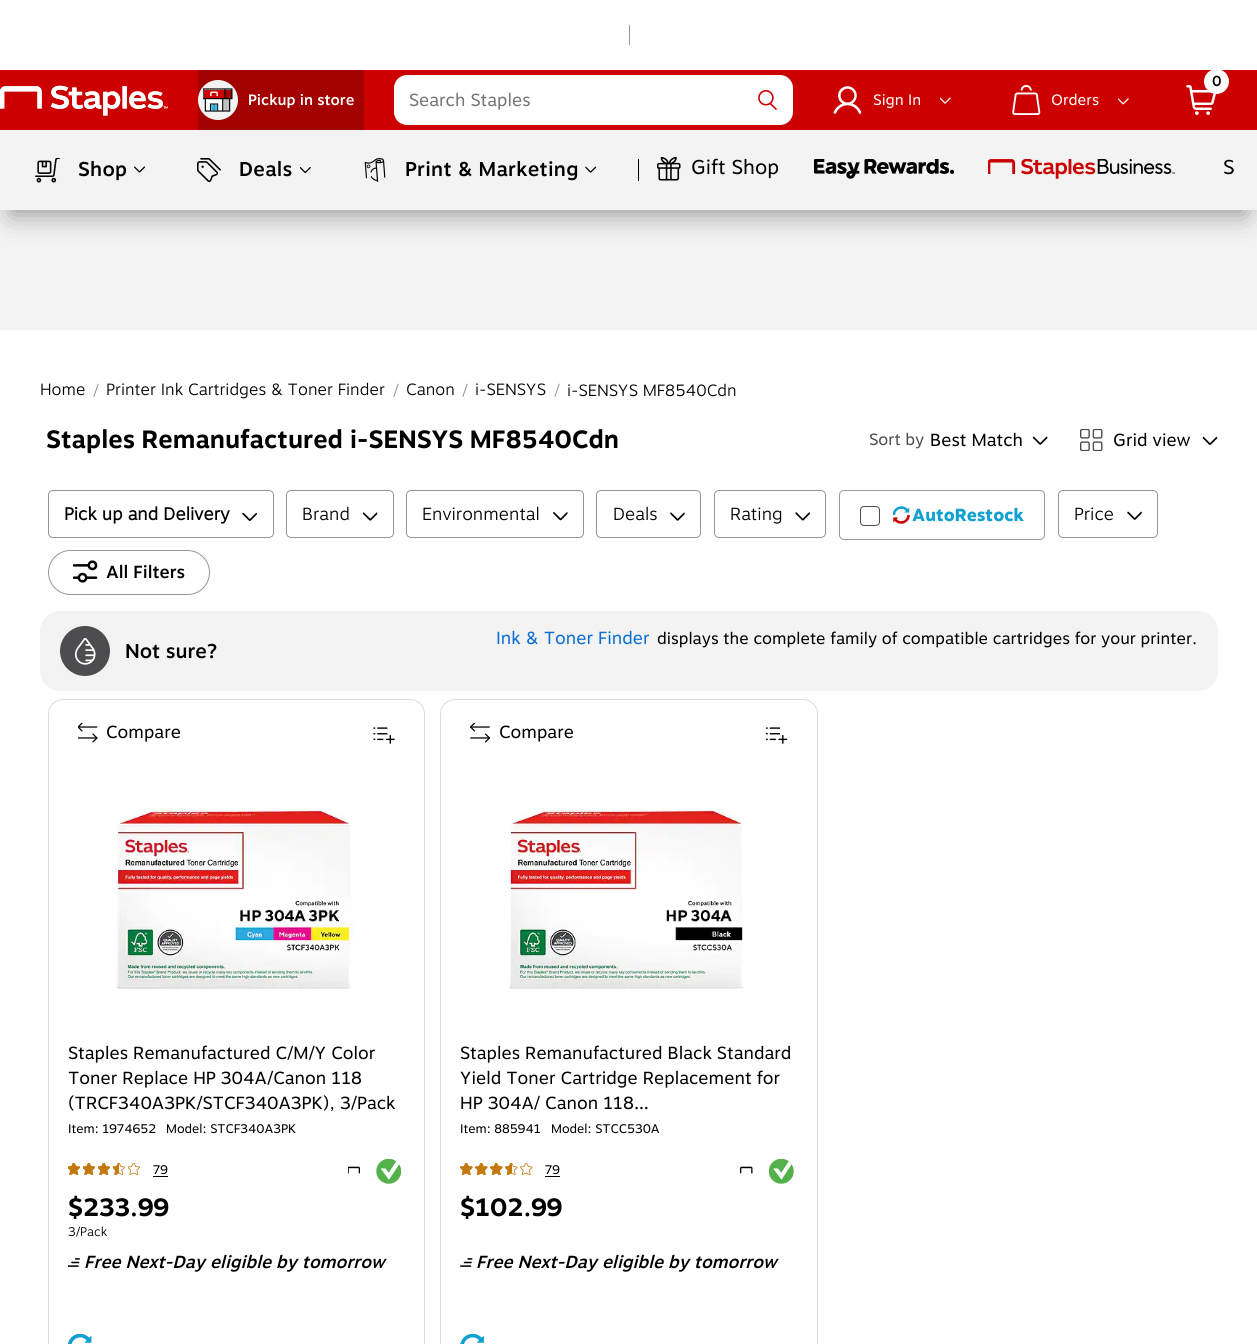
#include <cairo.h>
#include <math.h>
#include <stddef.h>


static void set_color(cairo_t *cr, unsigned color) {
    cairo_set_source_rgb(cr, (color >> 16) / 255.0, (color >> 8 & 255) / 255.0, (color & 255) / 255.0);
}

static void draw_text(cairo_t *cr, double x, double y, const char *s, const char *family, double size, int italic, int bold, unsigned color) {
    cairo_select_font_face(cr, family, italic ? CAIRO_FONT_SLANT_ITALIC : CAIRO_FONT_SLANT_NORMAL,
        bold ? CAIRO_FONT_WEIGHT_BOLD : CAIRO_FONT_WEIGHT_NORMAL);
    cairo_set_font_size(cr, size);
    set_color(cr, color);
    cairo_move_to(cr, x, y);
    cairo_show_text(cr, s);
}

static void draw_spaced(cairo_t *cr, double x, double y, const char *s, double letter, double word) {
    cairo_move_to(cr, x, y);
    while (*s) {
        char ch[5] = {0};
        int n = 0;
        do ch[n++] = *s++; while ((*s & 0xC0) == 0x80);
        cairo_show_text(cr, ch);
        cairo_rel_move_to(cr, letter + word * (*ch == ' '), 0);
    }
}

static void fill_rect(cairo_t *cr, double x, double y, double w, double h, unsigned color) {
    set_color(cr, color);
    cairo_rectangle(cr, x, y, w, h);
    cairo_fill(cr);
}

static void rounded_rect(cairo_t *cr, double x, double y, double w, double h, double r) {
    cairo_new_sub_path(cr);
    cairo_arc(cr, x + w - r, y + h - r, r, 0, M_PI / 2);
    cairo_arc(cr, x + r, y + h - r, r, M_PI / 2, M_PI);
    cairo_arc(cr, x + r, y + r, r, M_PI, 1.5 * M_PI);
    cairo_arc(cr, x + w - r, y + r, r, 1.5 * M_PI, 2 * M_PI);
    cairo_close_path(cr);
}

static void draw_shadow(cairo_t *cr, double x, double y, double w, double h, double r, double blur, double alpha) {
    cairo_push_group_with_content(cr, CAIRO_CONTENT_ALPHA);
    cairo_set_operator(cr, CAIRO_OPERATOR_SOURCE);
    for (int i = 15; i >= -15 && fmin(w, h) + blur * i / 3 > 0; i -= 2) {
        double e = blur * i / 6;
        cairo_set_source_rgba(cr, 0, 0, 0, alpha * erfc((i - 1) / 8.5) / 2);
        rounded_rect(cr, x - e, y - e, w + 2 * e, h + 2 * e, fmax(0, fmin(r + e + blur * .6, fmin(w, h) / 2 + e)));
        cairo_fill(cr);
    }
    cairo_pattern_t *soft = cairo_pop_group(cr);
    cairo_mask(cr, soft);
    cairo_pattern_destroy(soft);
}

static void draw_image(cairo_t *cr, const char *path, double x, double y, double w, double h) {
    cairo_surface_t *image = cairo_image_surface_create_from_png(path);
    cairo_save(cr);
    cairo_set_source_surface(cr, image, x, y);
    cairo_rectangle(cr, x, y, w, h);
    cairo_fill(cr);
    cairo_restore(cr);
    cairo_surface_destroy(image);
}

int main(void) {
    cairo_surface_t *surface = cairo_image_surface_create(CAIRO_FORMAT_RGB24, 1257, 1344);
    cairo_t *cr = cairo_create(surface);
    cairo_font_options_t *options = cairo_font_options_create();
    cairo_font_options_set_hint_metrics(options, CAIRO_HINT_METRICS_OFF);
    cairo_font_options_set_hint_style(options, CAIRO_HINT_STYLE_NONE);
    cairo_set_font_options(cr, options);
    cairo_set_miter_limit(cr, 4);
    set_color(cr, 0xFFFFFF);
    cairo_paint(cr);
    fill_rect(cr, 629, 25, 1, 20, 0x969697);
    fill_rect(cr, 0, 210, 1257, 120, 0xF3F3F3);
    set_color(cr, 0x000000);
    draw_shadow(cr, 11, 98, 1235, 117, 0, 13, 0.2);
    fill_rect(cr, 0, 70, 1257, 60, 0xCC0000);
    draw_image(cr, "assets/img1.png", 0, 85, 168, 31);
    fill_rect(cr, 198, 70, 166, 60, 0xA30000);
    set_color(cr, 0xF3F3F3);
    cairo_arc(cr, 218, 100, 20, 0, 2 * M_PI);
    cairo_fill(cr);
    draw_image(cr, "assets/img2.png", 203, 88, 30, 24);
    draw_text(cr, 248, 105, "Pickup in store", "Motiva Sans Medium", 15, 0, 0, 0xFFFFFF);
    rounded_rect(cr, 394, 75, 399, 50, 13);
    cairo_fill(cr);
    draw_text(cr, 409, 106, "Search Staples", "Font", 17.5, 0, 0, 0x757575);
    draw_image(cr, "assets/img3.png", 758, 90, 19, 20);
    draw_image(cr, "assets/img4.png", 1186, 85, 30, 30);
    set_color(cr, 0xFFFFFF);
    cairo_arc(cr, 1216.5, 81.5, 11, 0, 2 * M_PI);
    cairo_fill_preserve(cr);
    cairo_set_line_width(cr, 3);
    cairo_stroke(cr);
    draw_text(cr, 1212, 86, "0", "Font", 14, 0, 1, 0x000000);
    draw_image(cr, "assets/img5.png", 833, 86, 29, 28);
    draw_text(cr, 873, 105, "Sign In", "Font", 15, 0, 0, 0xFFFFFF);
    draw_image(cr, "assets/img6.png", 940, 97, 11, 7);
    draw_image(cr, "assets/img7.png", 1012, 85, 29, 30);
    draw_text(cr, 1051, 105, "Orders", "Font", 15, 0, 0, 0xFFFFFF);
    draw_image(cr, "assets/img8.png", 1118, 98, 11, 7);
    set_color(cr, 0x000000);
    draw_shadow(cr, 11, 158, 1235, 57, 0, 13, 0.2);
    fill_rect(cr, 0, 130, 1257, 80, 0xF3F3F3);
    draw_image(cr, "assets/img9.png", 35, 158, 25, 25);
    cairo_select_font_face(cr, "Motiva Sans Medium", CAIRO_FONT_SLANT_NORMAL, CAIRO_FONT_WEIGHT_NORMAL);
    cairo_set_font_size(cr, 20);
    set_color(cr, 0x000000);
    draw_spaced(cr, 78, 176, "Shop", 0.25, 0);
    draw_image(cr, "assets/img10.png", 134, 166, 11, 7);
    draw_image(cr, "assets/img11.png", 197, 158, 24, 24);
    draw_spaced(cr, 239, 176, "Deals", 0.25, 0);
    draw_image(cr, "assets/img12.png", 299, 167, 12, 7);
    draw_image(cr, "assets/img13.png", 364, 158, 22, 24);
    draw_spaced(cr, 405, 176, "Print & Marketing", 0.25, 0);
    draw_image(cr, "assets/img14.png", 585, 166, 12, 7);
    fill_rect(cr, 638, 159, 1, 22, 0x000000);
    draw_image(cr, "assets/img15.png", 657, 157, 24, 24);
    draw_text(cr, 691, 174, "Gift Shop", "Font", 20, 0, 0, 0x000000);
    draw_image(cr, "assets/img16.png", 814, 159, 140, 20);
    draw_image(cr, "assets/img17.png", 988, 159, 187, 20);
    draw_text(cr, 1223, 174, "S", "Font", 20, 0, 0, 0x000000);
    draw_text(cr, 40, 395, "Home", "Motiva Sans Light", 16.25, 0, 0, 0x000000);
    draw_text(cr, 93, 396, "/", "Motiva Sans Light", 16.25, 0, 0, 0x969696);
    draw_text(cr, 106, 395, "Printer Ink Cartridges & Toner Finder", "Motiva Sans Light", 16.25, 0, 0, 0x000000);
    draw_text(cr, 393, 396, "/", "Motiva Sans Light", 16.25, 0, 0, 0x969696);
    draw_text(cr, 406, 395, "Canon", "Motiva Sans Light", 16.25, 0, 0, 0x000000);
    draw_text(cr, 462, 396, "/", "Motiva Sans Light", 16.25, 0, 0, 0x969696);
    draw_text(cr, 475, 395, "i-SENSYS", "Motiva Sans Light", 16.25, 0, 0, 0x000000);
    draw_text(cr, 554, 396, "/", "Motiva Sans Light", 16.25, 0, 0, 0x969696);
    draw_text(cr, 567, 396, "i-SENSYS MF8540Cdn", "Motiva Sans Light", 16.25, 0, 0, 0x000000);
    draw_text(cr, 46, 448, "Staples Remanufactured i-SENSYS MF8540Cdn", "Motiva Sans", 25, 0, 1, 0x000000);
    draw_text(cr, 869, 445, "Sort by", "Font", 16.25, 0, 0, 0x4D4D4F);
    draw_text(cr, 930, 446, "Best Match", "Font", 17.5, 0, 0, 0x000000);
    draw_image(cr, "assets/img18.png", 1032, 436, 16, 9);
    draw_image(cr, "assets/img19.png", 1080, 429, 23, 22);
    draw_text(cr, 1113, 446, "Grid view", "Font", 17.5, 0, 0, 0x000000);
    draw_image(cr, "assets/img20.png", 1202, 436, 16, 9);
    rounded_rect(cr, 48.5, 490.5, 225, 47, 4.5);
    set_color(cr, 0x969697);
    cairo_set_line_width(cr, 1);
    cairo_stroke(cr);
    draw_text(cr, 64, 520, "Pick up and Delivery", "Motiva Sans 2", 17.5, 0, 1, 0x000000);
    draw_image(cr, "assets/img21.png", 242, 512, 15, 9);
    rounded_rect(cr, 286.5, 490.5, 107, 47, 4.5);
    set_color(cr, 0x969697);
    cairo_stroke(cr);
    draw_text(cr, 302, 520, "Brand", "Motiva Sans Light", 17.5, 0, 0, 0x000000);
    draw_image(cr, "assets/img22.png", 362, 512, 16, 9);
    rounded_rect(cr, 406.5, 490.5, 177, 47, 4.5);
    set_color(cr, 0x969697);
    cairo_stroke(cr);
    draw_text(cr, 422, 520, "Environmental", "Motiva Sans Light", 17.5, 0, 0, 0x000000);
    draw_image(cr, "assets/img23.png", 553, 512, 15, 9);
    rounded_rect(cr, 596.5, 490.5, 104, 47, 4.5);
    set_color(cr, 0x969697);
    cairo_stroke(cr);
    draw_text(cr, 613, 520, "Deals", "Motiva Sans Light", 17.5, 0, 0, 0x000000);
    draw_image(cr, "assets/img24.png", 670, 512, 15, 9);
    rounded_rect(cr, 714.5, 490.5, 111, 47, 4.5);
    set_color(cr, 0x969697);
    cairo_stroke(cr);
    draw_text(cr, 730, 520, "Rating", "Motiva Sans Light", 17.5, 0, 0, 0x000000);
    draw_image(cr, "assets/img25.png", 795, 512, 15, 9);
    rounded_rect(cr, 839.5, 490.5, 205, 49, 4.5);
    set_color(cr, 0x9B9B9B);
    cairo_stroke(cr);
    rounded_rect(cr, 860.5, 506.5, 19, 19, 3.5);
    set_color(cr, 0x4D4D4F);
    cairo_stroke(cr);
    draw_image(cr, "assets/img26.png", 893, 506, 17, 9);
    draw_image(cr, "assets/img27.png", 893, 515, 17, 9);
    draw_text(cr, 912, 521, "AutoRestock", "Motiva Sans ExtraBold", 17.5, 0, 0, 0x10A0D1);
    rounded_rect(cr, 1058.5, 490.5, 99, 47, 4.5);
    set_color(cr, 0x969697);
    cairo_stroke(cr);
    draw_text(cr, 1074, 520, "Price", "Motiva Sans Light", 17.5, 0, 0, 0x000000);
    draw_image(cr, "assets/img28.png", 1127, 511, 15, 9);
    rounded_rect(cr, 48.5, 550.5, 161, 44, 22);
    set_color(cr, 0x969696);
    cairo_stroke(cr);
    draw_image(cr, "assets/img29.png", 73, 560, 25, 23);
    draw_text(cr, 106, 578, "All Filters", "Motiva Sans Medium", 17.5, 0, 0, 0x000000);
    set_color(cr, 0xF3F3F3);
    rounded_rect(cr, 40, 611, 1178, 80, 20);
    cairo_fill(cr);
    set_color(cr, 0x4D4D4F);
    cairo_arc(cr, 85, 651, 25, 0, 2 * M_PI);
    cairo_fill(cr);
    draw_image(cr, "assets/img30.png", 74, 638, 22, 27);
    draw_text(cr, 496, 644, "Ink & Toner Finder", "Font", 17.5, 0, 0, 0x086DD2);
    draw_text(cr, 657, 644, "displays the complete family of compatible cartridges for your printer.", "Font", 16.25, 0, 0, 0x000000);
    draw_text(cr, 125, 658, "Not sure?", "Motiva Sans Medium", 20, 0, 0, 0x000000);
    rounded_rect(cr, 48.5, 699.5, 376, 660, 14.5);
    set_color(cr, 0xDDDDDD);
    cairo_stroke(cr);
    draw_image(cr, "assets/img31.png", 78, 723, 20, 20);
    draw_text(cr, 106, 738, "Compare", "Font", 17.5, 0, 0, 0x000000);
    draw_image(cr, "assets/img32.png", 373, 727, 22, 17);
    draw_image(cr, "assets/img33.png", 115, 808, 239, 182);
    draw_text(cr, 68, 1059, "Staples Remanufactured C/M/Y Color", "Font", 17.5, 0, 0, 0x000000);
    draw_text(cr, 68, 1084, "Toner Replace HP 304A/Canon 118", "Font", 17.5, 0, 0, 0x000000);
    draw_text(cr, 68, 1109, "(TRCF340A3PK/STCF340A3PK), 3/Pack", "Font", 17.5, 0, 0, 0x000000);
    draw_text(cr, 68, 1133, "Item: 1974652", "Font", 12.5, 0, 0, 0x000000);
    draw_text(cr, 166, 1133, "Model: STCF340A3PK", "Font", 12.5, 0, 0, 0x000000);
    draw_image(cr, "assets/img34.png", 68, 1163, 12, 12);
    draw_image(cr, "assets/img35.png", 68, 1163, 12, 12);
    draw_image(cr, "assets/img34.png", 83, 1163, 12, 12);
    draw_image(cr, "assets/img35.png", 83, 1163, 12, 12);
    draw_image(cr, "assets/img34.png", 98, 1163, 12, 12);
    draw_image(cr, "assets/img35.png", 98, 1163, 12, 12);
    draw_image(cr, "assets/img36.png", 113, 1163, 6, 12);
    draw_image(cr, "assets/img37.png", 113, 1163, 12, 12);
    draw_image(cr, "assets/img38.png", 128, 1163, 12, 12);
    draw_text(cr, 153, 1174, "79", "Font", 12.5, 0, 0, 0x000000);
    fill_rect(cr, 153, 1176, 15, 1, 0x000000);
    draw_image(cr, "assets/img39.png", 348, 1166, 12, 8);
    draw_image(cr, "assets/img40.png", 376, 1159, 25, 25);
    draw_text(cr, 68, 1216, "$233.99", "Motiva Sans", 25, 0, 1, 0x000000);
    draw_text(cr, 68, 1236, "3/Pack", "Motiva Sans Light", 12.5, 0, 0, 0x000000);
    draw_image(cr, "assets/img41.png", 68, 1258, 12, 9);
    draw_text(cr, 84, 1268, "Free Next-Day eligible by tomorrow", "Motiva Sans Medium", 17.5, 1, 0, 0x000000);
    draw_image(cr, "assets/img42.png", 68, 1334, 24, 10);
    rounded_rect(cr, 440.5, 699.5, 377, 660, 14.5);
    set_color(cr, 0xDDDDDD);
    cairo_stroke(cr);
    draw_image(cr, "assets/img43.png", 470, 723, 20, 20);
    draw_text(cr, 499, 738, "Compare", "Font", 17.5, 0, 0, 0x000000);
    draw_image(cr, "assets/img44.png", 765, 727, 23, 17);
    draw_image(cr, "assets/img45.png", 508, 808, 235, 182);
    draw_text(cr, 460, 1059, "Staples Remanufactured Black Standard", "Font", 17.5, 0, 0, 0x000000);
    draw_text(cr, 460, 1084, "Yield Toner Cartridge Replacement for", "Font", 17.5, 0, 0, 0x000000);
    draw_text(cr, 460, 1109, "HP 304A/ Canon 118…", "Font", 17.5, 0, 0, 0x000000);
    draw_text(cr, 460, 1133, "Item: 885941", "Font", 12.5, 0, 0, 0x000000);
    draw_text(cr, 551, 1133, "Model: STCC530A", "Font", 12.5, 0, 0, 0x000000);
    draw_image(cr, "assets/img46.png", 460, 1163, 13, 12);
    draw_image(cr, "assets/img47.png", 460, 1163, 13, 12);
    draw_image(cr, "assets/img46.png", 475, 1163, 13, 12);
    draw_image(cr, "assets/img47.png", 475, 1163, 13, 12);
    draw_image(cr, "assets/img46.png", 490, 1163, 13, 12);
    draw_image(cr, "assets/img47.png", 490, 1163, 13, 12);
    draw_image(cr, "assets/img48.png", 505, 1163, 7, 12);
    draw_image(cr, "assets/img49.png", 505, 1163, 13, 12);
    draw_image(cr, "assets/img50.png", 520, 1163, 13, 12);
    draw_text(cr, 545, 1174, "79", "Font", 12.5, 0, 0, 0x000000);
    fill_rect(cr, 545, 1176, 15, 1, 0x000000);
    draw_image(cr, "assets/img51.png", 740, 1166, 13, 8);
    draw_image(cr, "assets/img52.png", 769, 1159, 25, 25);
    draw_text(cr, 460, 1216, "$102.99", "Motiva Sans", 25, 0, 1, 0x000000);
    draw_image(cr, "assets/img53.png", 460, 1258, 13, 9);
    draw_text(cr, 476, 1268, "Free Next-Day eligible by tomorrow", "Motiva Sans Medium", 17.5, 1, 0, 0x000000);
    draw_image(cr, "assets/img54.png", 460, 1334, 24, 10);
    cairo_surface_write_to_png(surface, "output.png");
    cairo_font_options_destroy(options);
    cairo_destroy(cr);
    cairo_surface_destroy(surface);
    return 0;
}
